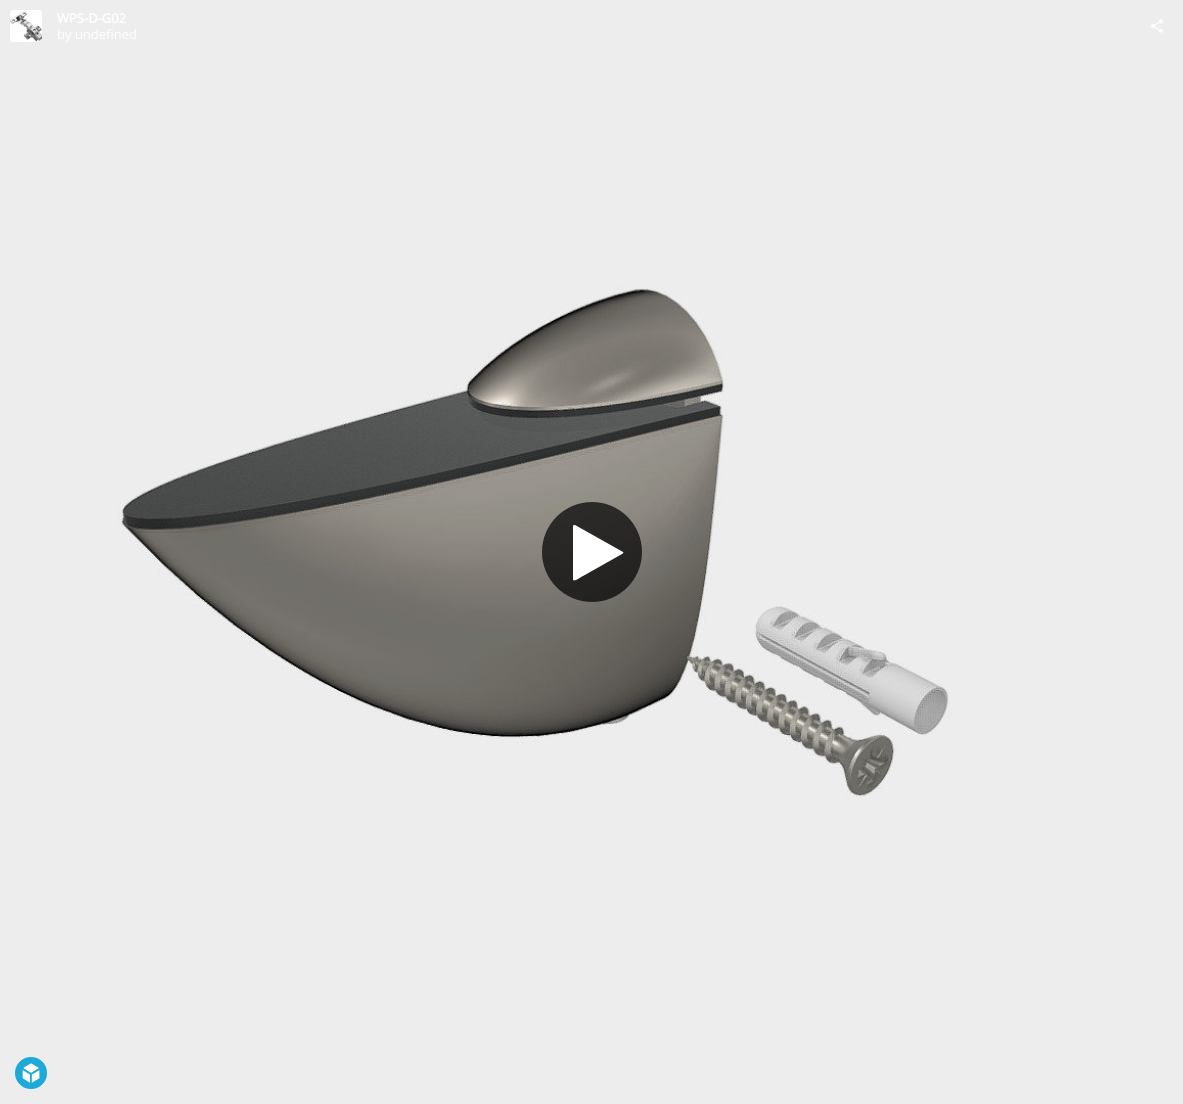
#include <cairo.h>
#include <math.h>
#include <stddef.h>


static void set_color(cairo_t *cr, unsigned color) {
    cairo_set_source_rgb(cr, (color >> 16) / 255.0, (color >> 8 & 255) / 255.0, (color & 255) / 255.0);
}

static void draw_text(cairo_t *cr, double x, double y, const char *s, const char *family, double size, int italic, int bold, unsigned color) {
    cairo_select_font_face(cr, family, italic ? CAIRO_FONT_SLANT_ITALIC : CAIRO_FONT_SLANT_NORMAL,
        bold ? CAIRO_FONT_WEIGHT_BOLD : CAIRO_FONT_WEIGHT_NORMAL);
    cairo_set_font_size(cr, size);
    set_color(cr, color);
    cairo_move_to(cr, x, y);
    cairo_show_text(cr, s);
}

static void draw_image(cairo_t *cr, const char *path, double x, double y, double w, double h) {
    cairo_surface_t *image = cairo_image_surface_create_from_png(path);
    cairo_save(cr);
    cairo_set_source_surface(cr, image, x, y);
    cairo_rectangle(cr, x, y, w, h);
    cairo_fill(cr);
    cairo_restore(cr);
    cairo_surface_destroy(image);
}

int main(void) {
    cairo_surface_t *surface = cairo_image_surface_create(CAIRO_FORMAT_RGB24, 1183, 1104);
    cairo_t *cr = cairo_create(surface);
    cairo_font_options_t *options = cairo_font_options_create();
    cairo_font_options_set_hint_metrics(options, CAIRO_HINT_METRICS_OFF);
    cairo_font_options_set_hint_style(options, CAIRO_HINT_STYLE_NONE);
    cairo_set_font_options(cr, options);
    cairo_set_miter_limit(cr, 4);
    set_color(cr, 0xFFFFFF);
    cairo_paint(cr);
    draw_image(cr, "assets/img1.png", 0, 0, 1183, 1104);
    cairo_set_source_rgba(cr, 0, 0, 0, 0.7);
    cairo_arc(cr, 592, 552, 50, 0, 2 * M_PI);
    cairo_fill(cr);
    set_color(cr, 0xFFFFFF);
    cairo_new_path(cr);
    cairo_move_to(cr, 622, 554);
    cairo_line_to(cr, 583, 576);
    cairo_curve_to(cr, 582, 576, 575, 582, 573, 580);
    cairo_line_to(cr, 573, 526);
    cairo_curve_to(cr, 573, 525, 574, 525, 575, 525);
    cairo_line_to(cr, 623, 552);
    cairo_curve_to(cr, 624, 553, 623, 553, 622, 554);
    cairo_close_path(cr);
    cairo_fill(cr);
    draw_image(cr, "assets/img2.png", 15, 1057, 32, 32);
    draw_image(cr, "assets/img3.png", 10, 10, 32, 32);
    draw_text(cr, 57, 23, "WPS-D-G02", "Open Sans", 13, 0, 1, 0xFFFFFF);
    draw_text(cr, 57, 39, "by undefined", "Open Sans", 13, 0, 0, 0xFFFFFF);
    draw_image(cr, "assets/img4.png", 1151, 19, 12, 14);
    cairo_surface_write_to_png(surface, "output.png");
    cairo_font_options_destroy(options);
    cairo_destroy(cr);
    cairo_surface_destroy(surface);
    return 0;
}
